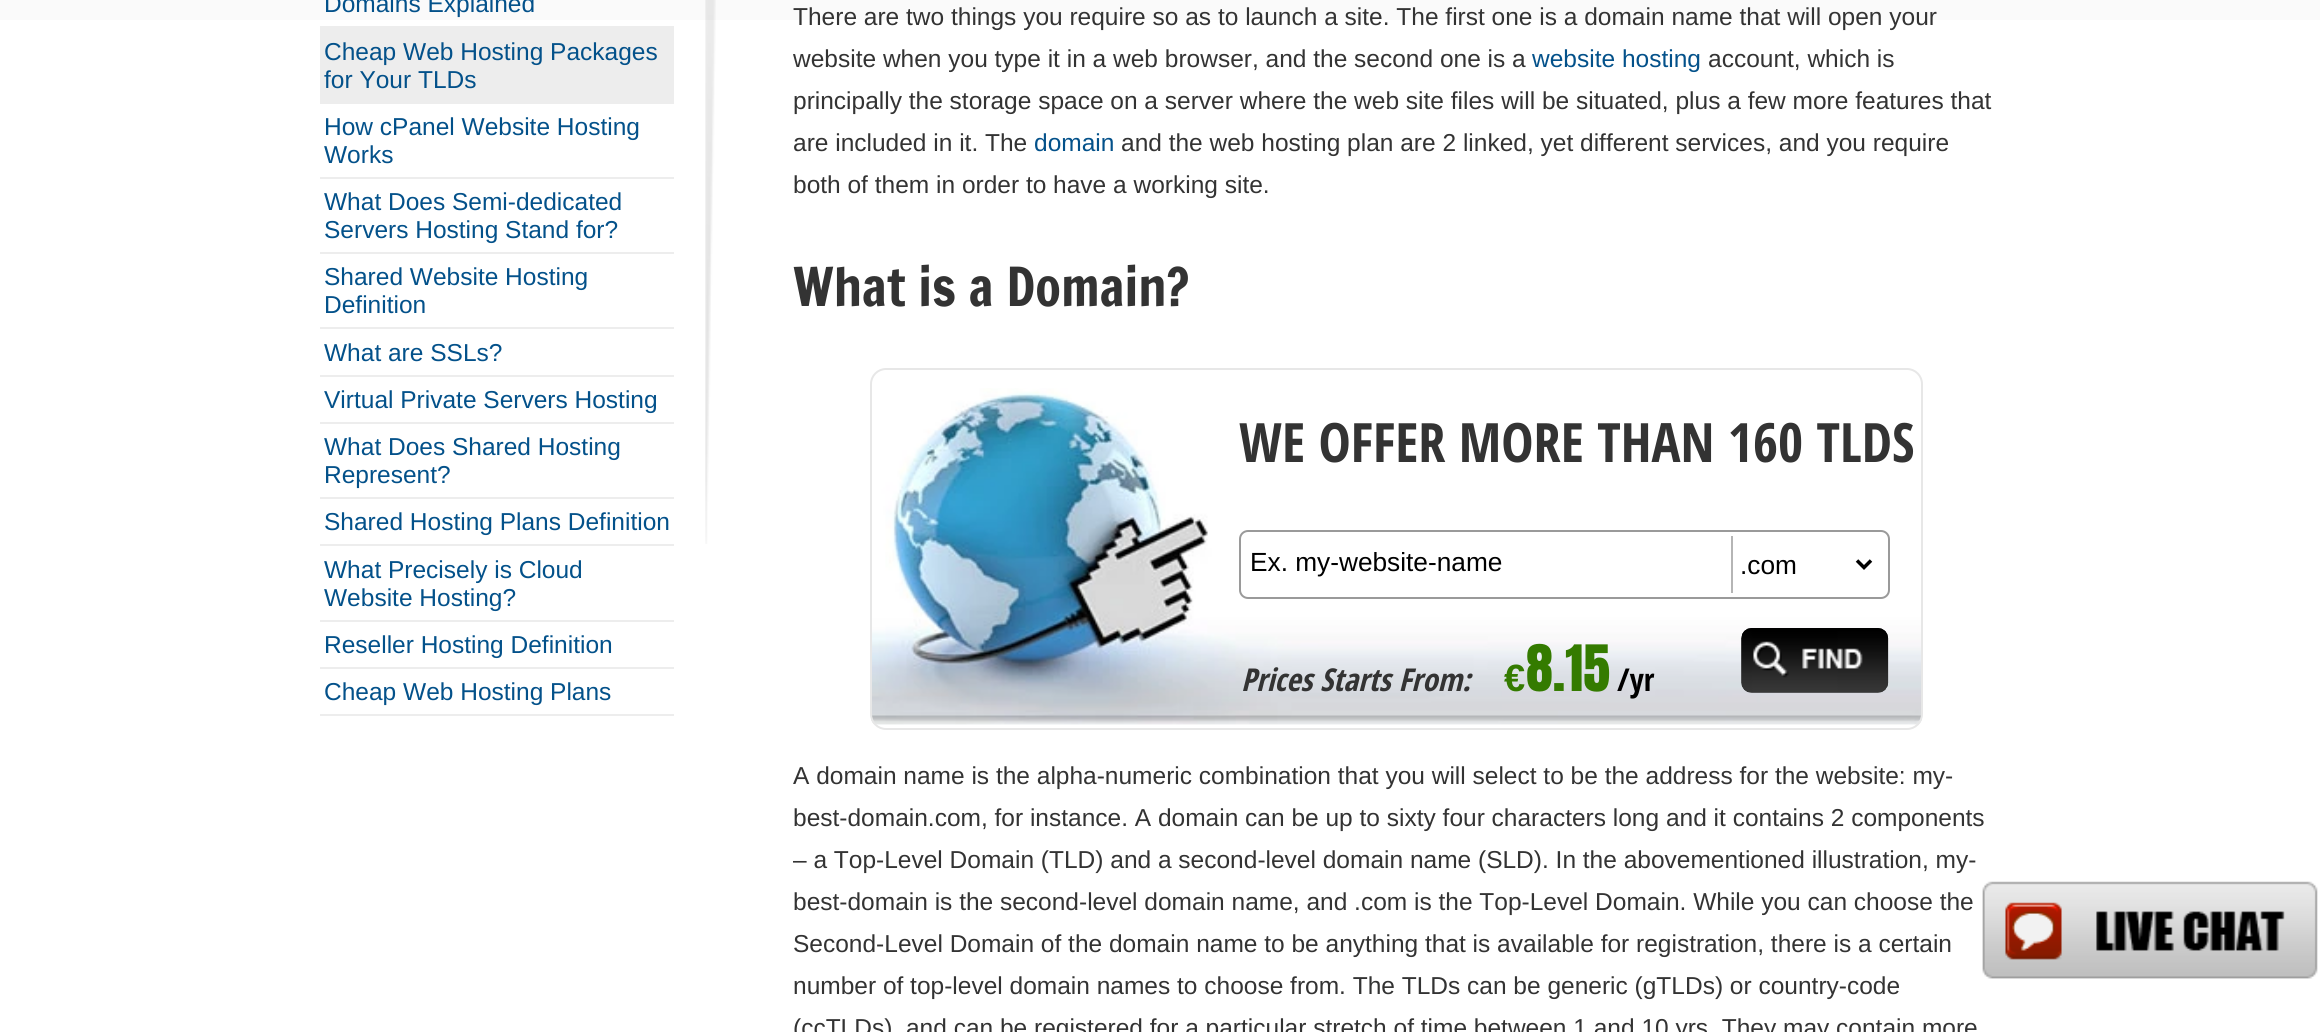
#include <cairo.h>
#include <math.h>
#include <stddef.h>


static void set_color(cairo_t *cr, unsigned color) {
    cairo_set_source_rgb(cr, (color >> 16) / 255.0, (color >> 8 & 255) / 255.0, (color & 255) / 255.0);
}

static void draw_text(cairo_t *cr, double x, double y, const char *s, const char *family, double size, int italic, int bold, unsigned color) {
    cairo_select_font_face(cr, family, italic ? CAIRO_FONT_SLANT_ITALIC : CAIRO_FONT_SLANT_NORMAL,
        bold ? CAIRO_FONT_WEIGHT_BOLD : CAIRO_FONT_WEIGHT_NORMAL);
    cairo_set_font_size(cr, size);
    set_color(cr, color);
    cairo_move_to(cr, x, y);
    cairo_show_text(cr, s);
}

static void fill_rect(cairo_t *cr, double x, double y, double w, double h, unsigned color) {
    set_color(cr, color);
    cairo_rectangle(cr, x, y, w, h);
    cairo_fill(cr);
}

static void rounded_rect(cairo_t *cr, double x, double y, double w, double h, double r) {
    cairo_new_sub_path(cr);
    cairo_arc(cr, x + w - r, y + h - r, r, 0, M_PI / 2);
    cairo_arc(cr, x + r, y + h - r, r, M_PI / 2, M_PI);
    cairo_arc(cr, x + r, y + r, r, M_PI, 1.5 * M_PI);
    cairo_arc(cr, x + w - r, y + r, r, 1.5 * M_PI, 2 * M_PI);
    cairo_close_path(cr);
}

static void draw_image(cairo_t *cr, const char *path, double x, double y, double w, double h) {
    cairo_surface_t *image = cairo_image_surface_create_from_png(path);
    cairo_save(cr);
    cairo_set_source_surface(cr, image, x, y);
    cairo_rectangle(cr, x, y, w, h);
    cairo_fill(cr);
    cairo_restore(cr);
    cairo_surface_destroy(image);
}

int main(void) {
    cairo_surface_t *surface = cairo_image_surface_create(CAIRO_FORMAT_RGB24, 2320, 1032);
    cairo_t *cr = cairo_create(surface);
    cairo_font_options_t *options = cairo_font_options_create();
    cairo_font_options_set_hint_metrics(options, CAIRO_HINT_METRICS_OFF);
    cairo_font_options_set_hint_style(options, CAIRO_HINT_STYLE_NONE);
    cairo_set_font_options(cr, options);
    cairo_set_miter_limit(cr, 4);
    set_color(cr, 0xFFFFFF);
    cairo_paint(cr);
    fill_rect(cr, 0, 0, 2320, 20, 0xFAFAFA);
    draw_image(cr, "assets/img1.png", 705, 0, 11, 544);
    fill_rect(cr, 320, 26, 354, 78, 0xEDEDED);
    draw_text(cr, 324, 12, "Domains Explained", "Liberation Sans", 24.5, 0, 0, 0x03518A);
    draw_text(cr, 324, 60, "Cheap Web Hosting Packages", "Liberation Sans", 24.5, 0, 0, 0x03518A);
    draw_text(cr, 324, 88, "for Your TLDs", "Liberation Sans", 24.5, 0, 0, 0x03518A);
    fill_rect(cr, 320, 177, 354, 2, 0xEDEDED);
    draw_text(cr, 324, 135, "How cPanel Website Hosting", "Liberation Sans", 24.5, 0, 0, 0x03518A);
    draw_text(cr, 324, 163, "Works", "Liberation Sans", 24.5, 0, 0, 0x03518A);
    fill_rect(cr, 320, 252, 354, 2, 0xEDEDED);
    draw_text(cr, 324, 210, "What Does Semi-dedicated", "Liberation Sans", 24.5, 0, 0, 0x03518A);
    draw_text(cr, 324, 238, "Servers Hosting Stand for?", "Liberation Sans", 24.5, 0, 0, 0x03518A);
    fill_rect(cr, 320, 327, 354, 2, 0xEDEDED);
    draw_text(cr, 324, 285, "Shared Website Hosting", "Liberation Sans", 24.5, 0, 0, 0x03518A);
    draw_text(cr, 324, 313, "Definition", "Liberation Sans", 24.5, 0, 0, 0x03518A);
    fill_rect(cr, 320, 375, 354, 2, 0xEDEDED);
    draw_text(cr, 324, 361, "What are SSLs?", "Liberation Sans", 24.5, 0, 0, 0x03518A);
    fill_rect(cr, 320, 422, 354, 2, 0xEDEDED);
    draw_text(cr, 324, 408, "Virtual Private Servers Hosting", "Liberation Sans", 24.5, 0, 0, 0x03518A);
    fill_rect(cr, 320, 497, 354, 2, 0xEDEDED);
    draw_text(cr, 324, 455, "What Does Shared Hosting", "Liberation Sans", 24.5, 0, 0, 0x03518A);
    draw_text(cr, 324, 483, "Represent?", "Liberation Sans", 24.5, 0, 0, 0x03518A);
    fill_rect(cr, 320, 544, 354, 2, 0xEDEDED);
    draw_text(cr, 324, 530, "Shared Hosting Plans Definition", "Liberation Sans", 24.5, 0, 0, 0x03518A);
    fill_rect(cr, 320, 620, 354, 2, 0xEDEDED);
    draw_text(cr, 324, 578, "What Precisely is Cloud", "Liberation Sans", 24.5, 0, 0, 0x03518A);
    draw_text(cr, 324, 606, "Website Hosting?", "Liberation Sans", 24.5, 0, 0, 0x03518A);
    fill_rect(cr, 320, 667, 354, 2, 0xEDEDED);
    draw_text(cr, 324, 653, "Reseller Hosting Definition", "Liberation Sans", 24.5, 0, 0, 0x03518A);
    fill_rect(cr, 320, 714, 354, 2, 0xEDEDED);
    draw_text(cr, 324, 700, "Cheap Web Hosting Plans", "Liberation Sans", 24.5, 0, 0, 0x03518A);
    draw_text(cr, 793, 25, "There are two things you require so as to launch a site. The first one is a domain name that will open your", "Liberation Sans", 24.5, 0, 0, 0x333333);
    draw_text(cr, 793, 67, "website when you type it in a web browser, and the second one is a", "Liberation Sans", 24.5, 0, 0, 0x333333);
    draw_text(cr, 1532, 67, "website hosting", "Liberation Sans", 24.5, 0, 0, 0x03518A);
    draw_text(cr, 1708, 67, "account, which is", "Liberation Sans", 24.5, 0, 0, 0x333333);
    draw_text(cr, 793, 109, "principally the storage space on a server where the web site files will be situated, plus a few more features that", "Liberation Sans", 24.5, 0, 0, 0x333333);
    draw_text(cr, 793, 151, "are included in it. The", "Liberation Sans", 24.5, 0, 0, 0x333333);
    draw_text(cr, 1034, 151, "domain", "Liberation Sans", 24.5, 0, 0, 0x03518A);
    draw_text(cr, 1121, 151, "and the web hosting plan are 2 linked, yet different services, and you require", "Liberation Sans", 24.5, 0, 0, 0x333333);
    draw_text(cr, 793, 193, "both of them in order to have a working site.", "Liberation Sans", 24.5, 0, 0, 0x333333);
    draw_text(cr, 793, 306, "What is a Domain?", "Francois One", 52.5, 0, 0, 0x333333);
    draw_image(cr, "assets/img2.png", 871, 388, 1051, 337);
    rounded_rect(cr, 871, 369, 1051, 360, 15);
    set_color(cr, 0xE7E7E7);
    cairo_stroke(cr);
    draw_text(cr, 1239, 462, "WE OFFER MORE THAN 160 TLDS", "Open Sans Condensed", 54.25, 0, 1, 0x333333);
    rounded_rect(cr, 1240, 531, 649, 67, 8);
    set_color(cr, 0x9A9A9A);
    cairo_stroke(cr);
    draw_text(cr, 1250, 571, "Ex. my-website-name", "Liberation Sans", 26.25, 0, 0, 0x000000);
    fill_rect(cr, 1731, 536, 2, 57, 0xB5B5B5);
    cairo_new_path(cr);
    cairo_move_to(cr, 1857, 560.5);
    cairo_line_to(cr, 1864, 567.5);
    cairo_line_to(cr, 1871, 560.5);
    set_color(cr, 0x000000);
    cairo_set_line_width(cr, 3.5);
    cairo_stroke(cr);
    draw_text(cr, 1740, 574, ".com", "Liberation Sans", 26.25, 0, 0, 0x000000);
    draw_image(cr, "assets/img3.png", 1741, 628, 148, 65);
    draw_image(cr, "assets/img4.png", 1741, 628, 148, 65);
    draw_text(cr, 1241, 691, "Prices Starts From:", "Open Sans Condensed", 31.5, 1, 1, 0x333333);
    draw_text(cr, 1504, 691, "€", "Liberation Sans", 38, 0, 1, 0x347B00);
    draw_text(cr, 1526, 691, "8.15", "Anton", 54.25, 0, 0, 0x347B00);
    draw_text(cr, 1617, 691, "/yr", "Open Sans Condensed", 31.5, 0, 1, 0x000000);
    draw_text(cr, 793, 784, "A domain name is the alpha-numeric combination that you will select to be the address for the website: my-", "Liberation Sans", 24.5, 0, 0, 0x333333);
    draw_text(cr, 793, 826, "best-domain.com, for instance. A domain can be up to sixty four characters long and it contains 2 components", "Liberation Sans", 24.5, 0, 0, 0x333333);
    draw_text(cr, 793, 868, "– a Top-Level Domain (TLD) and a second-level domain name (SLD). In the abovementioned illustration, my-", "Liberation Sans", 24.5, 0, 0, 0x333333);
    draw_text(cr, 793, 910, "best-domain is the second-level domain name, and .com is the Top-Level Domain. While you can choose the", "Liberation Sans", 24.5, 0, 0, 0x333333);
    draw_text(cr, 793, 952, "Second-Level Domain of the domain name to be anything that is available for registration, there is a certain", "Liberation Sans", 24.5, 0, 0, 0x333333);
    draw_text(cr, 793, 994, "number of top-level domain names to choose from. The TLDs can be generic (gTLDs) or country-code", "Liberation Sans", 24.5, 0, 0, 0x333333);
    draw_text(cr, 793, 1036, "(ccTLDs), and can be registered for a particular stretch of time between 1 and 10 yrs. They may contain more", "Liberation Sans", 24.5, 0, 0, 0x333333);
    draw_image(cr, "assets/img5.png", 1982, 881, 336, 98);
    cairo_surface_write_to_png(surface, "output.png");
    cairo_font_options_destroy(options);
    cairo_destroy(cr);
    cairo_surface_destroy(surface);
    return 0;
}
